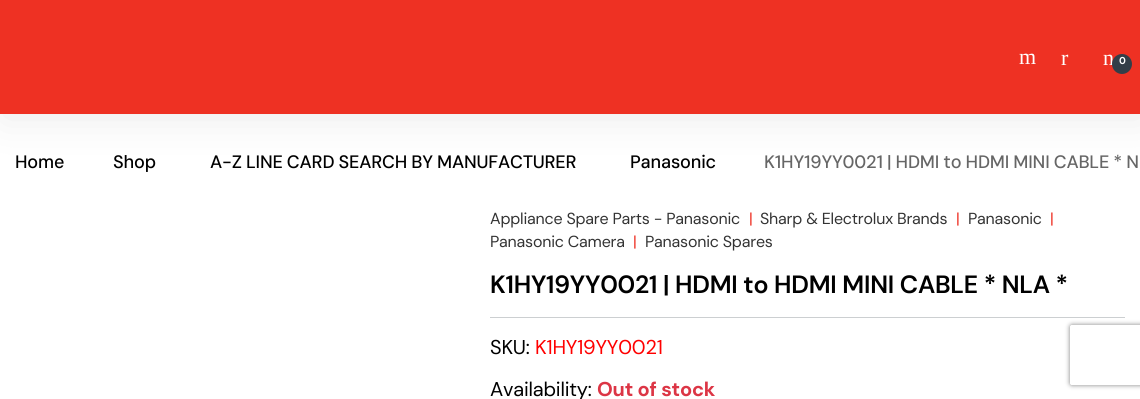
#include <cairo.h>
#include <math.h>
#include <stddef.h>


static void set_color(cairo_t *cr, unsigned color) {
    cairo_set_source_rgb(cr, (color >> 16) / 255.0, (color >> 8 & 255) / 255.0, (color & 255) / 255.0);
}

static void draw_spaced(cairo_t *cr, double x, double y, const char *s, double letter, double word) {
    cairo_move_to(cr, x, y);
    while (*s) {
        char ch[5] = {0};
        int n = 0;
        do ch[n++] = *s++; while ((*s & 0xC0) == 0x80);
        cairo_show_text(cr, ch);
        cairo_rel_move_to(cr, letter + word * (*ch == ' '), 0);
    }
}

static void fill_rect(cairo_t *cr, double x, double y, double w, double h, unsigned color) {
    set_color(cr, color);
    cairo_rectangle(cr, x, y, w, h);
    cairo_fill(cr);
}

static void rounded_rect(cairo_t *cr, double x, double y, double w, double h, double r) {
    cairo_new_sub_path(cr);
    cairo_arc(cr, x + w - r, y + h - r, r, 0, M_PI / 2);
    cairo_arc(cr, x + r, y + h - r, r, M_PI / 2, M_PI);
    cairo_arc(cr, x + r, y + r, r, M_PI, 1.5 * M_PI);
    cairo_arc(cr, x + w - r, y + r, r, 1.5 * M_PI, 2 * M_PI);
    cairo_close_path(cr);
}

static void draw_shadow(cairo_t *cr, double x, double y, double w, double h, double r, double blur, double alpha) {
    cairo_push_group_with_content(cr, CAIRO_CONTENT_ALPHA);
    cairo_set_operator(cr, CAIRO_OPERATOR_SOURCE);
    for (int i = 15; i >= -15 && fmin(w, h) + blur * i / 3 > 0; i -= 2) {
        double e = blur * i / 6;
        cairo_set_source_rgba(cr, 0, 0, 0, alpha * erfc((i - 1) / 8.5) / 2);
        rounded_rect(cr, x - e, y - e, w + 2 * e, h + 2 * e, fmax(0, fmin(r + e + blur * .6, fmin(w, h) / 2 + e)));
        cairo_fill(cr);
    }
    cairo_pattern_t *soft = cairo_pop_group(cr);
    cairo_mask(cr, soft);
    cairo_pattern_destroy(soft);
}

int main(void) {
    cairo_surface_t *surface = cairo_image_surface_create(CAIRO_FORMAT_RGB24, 1140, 399);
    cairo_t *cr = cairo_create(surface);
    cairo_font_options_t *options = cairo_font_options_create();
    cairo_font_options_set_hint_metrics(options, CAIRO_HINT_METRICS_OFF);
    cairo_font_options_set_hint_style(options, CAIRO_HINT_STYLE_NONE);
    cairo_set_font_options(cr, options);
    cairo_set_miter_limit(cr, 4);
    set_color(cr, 0xFFFFFF);
    cairo_paint(cr);
    set_color(cr, 0xAEAEAE);
    draw_shadow(cr, 3, 4, 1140, 114, 0, 20, 0.25);
    fill_rect(cr, 0, 0, 1140, 114, 0xEE3123);
    cairo_select_font_face(cr, "Liberation Serif", CAIRO_FONT_SLANT_NORMAL, CAIRO_FONT_WEIGHT_NORMAL);
    cairo_set_font_size(cr, 22);
    set_color(cr, 0xFFFFFF);
    draw_spaced(cr, 1019, 64, "m", -0.2, 0);
    draw_spaced(cr, 1061, 65, "r", -0.2, 0);
    draw_spaced(cr, 1103, 65, "n", -0.2, 0);
    set_color(cr, 0x333E48);
    cairo_new_path(cr);
    cairo_arc(cr, 1122, 64, 10, 0, 2 * M_PI);
    cairo_fill(cr);
    cairo_select_font_face(cr, "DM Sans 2", CAIRO_FONT_SLANT_NORMAL, CAIRO_FONT_WEIGHT_BOLD);
    cairo_set_font_size(cr, 10);
    set_color(cr, 0xFFFFFF);
    draw_spaced(cr, 1119, 64, "0", -0.2, 0);
    cairo_select_font_face(cr, "DM Sans Medium", CAIRO_FONT_SLANT_NORMAL, CAIRO_FONT_WEIGHT_NORMAL);
    cairo_set_font_size(cr, 18);
    set_color(cr, 0x000000);
    draw_spaced(cr, 15, 168, "Home", -0.2, 0);
    draw_spaced(cr, 113, 168, "Shop", -0.2, 0);
    draw_spaced(cr, 210, 168, "A-Z LINE CARD SEARCH BY MANUFACTURER", -0.2, -0.25);
    draw_spaced(cr, 630, 168, "Panasonic", -0.2, 0);
    set_color(cr, 0x666666);
    draw_spaced(cr, 764, 168, "K1HY19YY0021 | HDMI to HDMI MINI CABLE * N", -0.2, -0.25);
    cairo_select_font_face(cr, "DM Sans 2", CAIRO_FONT_SLANT_NORMAL, CAIRO_FONT_WEIGHT_NORMAL);
    cairo_set_font_size(cr, 16);
    set_color(cr, 0x333333);
    draw_spaced(cr, 490, 224, "Appliance Spare Parts - Panasonic", -0.2, 0);
    set_color(cr, 0xEE3124);
    draw_spaced(cr, 749, 224, "|", -0.2, 0);
    set_color(cr, 0x333333);
    draw_spaced(cr, 760, 224, "Sharp & Electrolux Brands", -0.2, 0);
    set_color(cr, 0xEE3124);
    draw_spaced(cr, 956, 224, "|", -0.2, 0);
    set_color(cr, 0x333333);
    draw_spaced(cr, 968, 224, "Panasonic", -0.2, 0);
    set_color(cr, 0xEE3124);
    draw_spaced(cr, 1050, 224, "|", -0.2, 0);
    set_color(cr, 0x333333);
    draw_spaced(cr, 490, 247, "Panasonic Camera", -0.2, 0);
    set_color(cr, 0xEE3124);
    draw_spaced(cr, 633, 247, "|", -0.2, 0);
    set_color(cr, 0x333333);
    draw_spaced(cr, 645, 247, "Panasonic Spares", -0.2, 0);
    cairo_select_font_face(cr, "DM Sans SemiBold", CAIRO_FONT_SLANT_NORMAL, CAIRO_FONT_WEIGHT_NORMAL);
    cairo_set_font_size(cr, 25);
    set_color(cr, 0x000000);
    draw_spaced(cr, 490, 293, "K1HY19YY0021 | HDMI to HDMI MINI CABLE * NLA *", -0.2, 0);
    fill_rect(cr, 490, 317, 635, 1, 0xCCCFD1);
    cairo_select_font_face(cr, "DM Sans", CAIRO_FONT_SLANT_NORMAL, CAIRO_FONT_WEIGHT_NORMAL);
    cairo_set_font_size(cr, 20);
    set_color(cr, 0x000000);
    draw_spaced(cr, 490, 354, "SKU:", -0.2, 0);
    set_color(cr, 0xFF0000);
    draw_spaced(cr, 535, 354, "K1HY19YY0021", -0.2, 0);
    set_color(cr, 0x000000);
    draw_spaced(cr, 490, 396, "Availability:", -0.2, 0);
    cairo_select_font_face(cr, "DM Sans", CAIRO_FONT_SLANT_NORMAL, CAIRO_FONT_WEIGHT_BOLD);
    set_color(cr, 0xDC3545);
    draw_spaced(cr, 597, 396, "Out of stock", -0.2, 0);
    cairo_save(cr);
    cairo_set_fill_rule(cr, CAIRO_FILL_RULE_EVEN_ODD);
    cairo_new_path(cr);
    cairo_move_to(cr, 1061, 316);
    cairo_line_to(cr, 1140, 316);
    cairo_line_to(cr, 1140, 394);
    cairo_line_to(cr, 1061, 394);
    cairo_close_path(cr);
    cairo_move_to(cr, 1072, 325);
    cairo_line_to(cr, 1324, 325);
    cairo_curve_to(cr, 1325, 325, 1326, 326, 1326, 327);
    cairo_line_to(cr, 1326, 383);
    cairo_curve_to(cr, 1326, 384, 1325, 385, 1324, 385);
    cairo_line_to(cr, 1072, 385);
    cairo_curve_to(cr, 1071, 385, 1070, 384, 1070, 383);
    cairo_line_to(cr, 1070, 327);
    cairo_curve_to(cr, 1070, 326, 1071, 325, 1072, 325);
    cairo_close_path(cr);
    cairo_clip(cr);
    set_color(cr, 0x808080);
    draw_shadow(cr, 1070, 325, 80, 60, 2, 2.5, 1);
    cairo_restore(cr);
    cairo_surface_write_to_png(surface, "output.png");
    cairo_font_options_destroy(options);
    cairo_destroy(cr);
    cairo_surface_destroy(surface);
    return 0;
}
